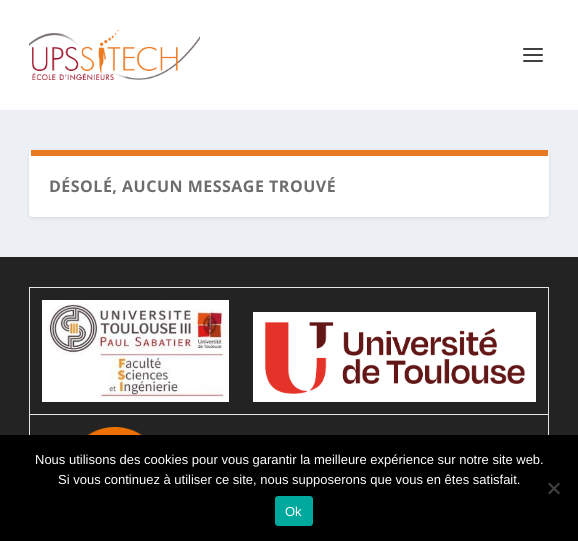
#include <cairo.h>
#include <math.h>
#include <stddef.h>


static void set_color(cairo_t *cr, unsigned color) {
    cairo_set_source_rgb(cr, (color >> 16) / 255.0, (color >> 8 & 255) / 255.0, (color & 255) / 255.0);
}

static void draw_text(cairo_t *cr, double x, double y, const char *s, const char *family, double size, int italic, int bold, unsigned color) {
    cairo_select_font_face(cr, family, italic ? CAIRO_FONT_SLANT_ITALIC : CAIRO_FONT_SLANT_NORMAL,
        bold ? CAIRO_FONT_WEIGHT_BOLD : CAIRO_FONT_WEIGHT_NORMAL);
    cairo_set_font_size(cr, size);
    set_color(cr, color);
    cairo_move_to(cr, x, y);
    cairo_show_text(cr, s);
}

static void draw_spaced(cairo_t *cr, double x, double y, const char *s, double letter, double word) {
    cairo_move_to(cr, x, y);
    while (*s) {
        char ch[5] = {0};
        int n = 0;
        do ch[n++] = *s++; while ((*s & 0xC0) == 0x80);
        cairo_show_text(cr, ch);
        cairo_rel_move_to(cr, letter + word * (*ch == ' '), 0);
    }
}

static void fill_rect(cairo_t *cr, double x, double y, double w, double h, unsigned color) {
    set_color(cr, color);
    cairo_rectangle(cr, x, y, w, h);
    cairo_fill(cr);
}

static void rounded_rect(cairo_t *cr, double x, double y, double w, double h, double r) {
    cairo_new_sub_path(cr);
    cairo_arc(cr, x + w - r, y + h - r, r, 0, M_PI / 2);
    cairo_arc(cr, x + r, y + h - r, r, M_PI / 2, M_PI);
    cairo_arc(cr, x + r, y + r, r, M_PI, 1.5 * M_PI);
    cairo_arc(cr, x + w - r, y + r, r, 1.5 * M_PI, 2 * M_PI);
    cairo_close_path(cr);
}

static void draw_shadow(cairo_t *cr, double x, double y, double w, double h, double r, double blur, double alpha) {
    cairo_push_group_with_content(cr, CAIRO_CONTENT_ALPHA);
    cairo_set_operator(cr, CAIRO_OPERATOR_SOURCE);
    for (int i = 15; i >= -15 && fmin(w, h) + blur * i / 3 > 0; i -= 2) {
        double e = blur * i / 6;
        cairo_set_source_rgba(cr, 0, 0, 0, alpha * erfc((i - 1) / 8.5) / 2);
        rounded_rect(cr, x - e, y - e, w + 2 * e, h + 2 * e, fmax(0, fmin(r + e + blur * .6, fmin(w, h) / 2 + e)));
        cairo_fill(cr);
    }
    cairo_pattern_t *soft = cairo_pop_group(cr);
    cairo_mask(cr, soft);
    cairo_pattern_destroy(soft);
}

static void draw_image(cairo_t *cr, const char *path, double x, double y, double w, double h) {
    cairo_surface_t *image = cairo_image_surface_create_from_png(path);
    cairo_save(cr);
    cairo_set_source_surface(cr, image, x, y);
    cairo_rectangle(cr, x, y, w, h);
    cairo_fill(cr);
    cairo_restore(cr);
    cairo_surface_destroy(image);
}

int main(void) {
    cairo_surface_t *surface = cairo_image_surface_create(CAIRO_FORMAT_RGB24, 578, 541);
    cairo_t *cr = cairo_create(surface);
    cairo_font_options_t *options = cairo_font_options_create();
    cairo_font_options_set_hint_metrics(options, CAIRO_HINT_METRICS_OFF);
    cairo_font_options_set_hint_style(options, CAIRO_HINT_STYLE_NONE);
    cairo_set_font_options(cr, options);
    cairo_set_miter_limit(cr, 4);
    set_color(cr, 0xECF0F5);
    cairo_paint(cr);
    fill_rect(cr, 0, 0, 578, 110, 0xFFFFFF);
    draw_image(cr, "assets/img1.png", 29, 30, 171, 50);
    set_color(cr, 0x404040);
    rounded_rect(cr, 523, 48, 20, 2, 1);
    cairo_fill(cr);
    rounded_rect(cr, 523, 54, 20, 2, 1);
    cairo_fill(cr);
    rounded_rect(cr, 523, 60, 20, 2, 1);
    cairo_fill(cr);
    set_color(cr, 0x000000);
    draw_shadow(cr, 29, 151, 520, 67, 3, 1.5, 0.1);
    set_color(cr, 0xFFFFFF);
    rounded_rect(cr, 29, 150, 520, 67, 3);
    cairo_fill(cr);
    fill_rect(cr, 31, 150, 517, 6, 0xE87A23);
    cairo_select_font_face(cr, "Open Sans", CAIRO_FONT_SLANT_NORMAL, CAIRO_FONT_WEIGHT_BOLD);
    cairo_set_font_size(cr, 16);
    set_color(cr, 0x6D6D6D);
    draw_spaced(cr, 49, 192, "DÉSOLÉ, AUCUN MESSAGE TROUVÉ", 0.5, 0);
    fill_rect(cr, 0, 257, 578, 178, 0x232323);
    fill_rect(cr, 29, 287, 520, 1, 0xE5E5E5);
    fill_rect(cr, 548, 287, 1, 148, 0xE5E5E5);
    fill_rect(cr, 29, 287, 1, 148, 0xE5E5E5);
    draw_image(cr, "assets/img2.png", 42, 300, 187, 102);
    draw_image(cr, "assets/img3.png", 253, 312, 283, 90);
    fill_rect(cr, 29, 414, 520, 1, 0xE5E5E5);
    draw_image(cr, "assets/img4.png", 87, 427, 56, 8);
    fill_rect(cr, 0, 435, 578, 106, 0x000000);
    draw_text(cr, 35, 464, "Nous utilisons des cookies pour vous garantir la meilleure expérience sur notre site web.", "Liberation Sans", 13, 0, 0, 0xFFFFFF);
    draw_text(cr, 58, 484, "Si vous continuez à utiliser ce site, nous supposerons que vous en êtes satisfait.", "Liberation Sans", 13, 0, 0, 0xFFFFFF);
    set_color(cr, 0x404040);
    cairo_new_path(cr);
    cairo_move_to(cr, 558.5, 482.5);
    cairo_line_to(cr, 560, 484);
    cairo_line_to(cr, 549.5, 494.5);
    cairo_line_to(cr, 548, 493);
    cairo_close_path(cr);
    cairo_fill(cr);
    cairo_new_path(cr);
    cairo_move_to(cr, 548, 484);
    cairo_line_to(cr, 549.5, 482.5);
    cairo_line_to(cr, 560, 493);
    cairo_line_to(cr, 558.5, 494.5);
    cairo_close_path(cr);
    cairo_fill(cr);
    set_color(cr, 0x00A99D);
    rounded_rect(cr, 275, 496, 38, 30, 3);
    cairo_fill(cr);
    draw_text(cr, 285, 516, "Ok", "Liberation Sans", 13, 0, 0, 0xFFFFFF);
    cairo_surface_write_to_png(surface, "output.png");
    cairo_font_options_destroy(options);
    cairo_destroy(cr);
    cairo_surface_destroy(surface);
    return 0;
}
